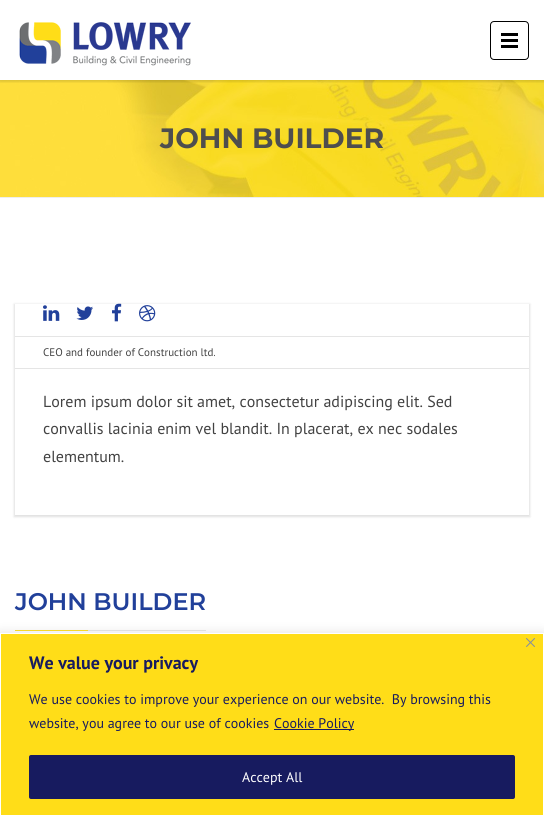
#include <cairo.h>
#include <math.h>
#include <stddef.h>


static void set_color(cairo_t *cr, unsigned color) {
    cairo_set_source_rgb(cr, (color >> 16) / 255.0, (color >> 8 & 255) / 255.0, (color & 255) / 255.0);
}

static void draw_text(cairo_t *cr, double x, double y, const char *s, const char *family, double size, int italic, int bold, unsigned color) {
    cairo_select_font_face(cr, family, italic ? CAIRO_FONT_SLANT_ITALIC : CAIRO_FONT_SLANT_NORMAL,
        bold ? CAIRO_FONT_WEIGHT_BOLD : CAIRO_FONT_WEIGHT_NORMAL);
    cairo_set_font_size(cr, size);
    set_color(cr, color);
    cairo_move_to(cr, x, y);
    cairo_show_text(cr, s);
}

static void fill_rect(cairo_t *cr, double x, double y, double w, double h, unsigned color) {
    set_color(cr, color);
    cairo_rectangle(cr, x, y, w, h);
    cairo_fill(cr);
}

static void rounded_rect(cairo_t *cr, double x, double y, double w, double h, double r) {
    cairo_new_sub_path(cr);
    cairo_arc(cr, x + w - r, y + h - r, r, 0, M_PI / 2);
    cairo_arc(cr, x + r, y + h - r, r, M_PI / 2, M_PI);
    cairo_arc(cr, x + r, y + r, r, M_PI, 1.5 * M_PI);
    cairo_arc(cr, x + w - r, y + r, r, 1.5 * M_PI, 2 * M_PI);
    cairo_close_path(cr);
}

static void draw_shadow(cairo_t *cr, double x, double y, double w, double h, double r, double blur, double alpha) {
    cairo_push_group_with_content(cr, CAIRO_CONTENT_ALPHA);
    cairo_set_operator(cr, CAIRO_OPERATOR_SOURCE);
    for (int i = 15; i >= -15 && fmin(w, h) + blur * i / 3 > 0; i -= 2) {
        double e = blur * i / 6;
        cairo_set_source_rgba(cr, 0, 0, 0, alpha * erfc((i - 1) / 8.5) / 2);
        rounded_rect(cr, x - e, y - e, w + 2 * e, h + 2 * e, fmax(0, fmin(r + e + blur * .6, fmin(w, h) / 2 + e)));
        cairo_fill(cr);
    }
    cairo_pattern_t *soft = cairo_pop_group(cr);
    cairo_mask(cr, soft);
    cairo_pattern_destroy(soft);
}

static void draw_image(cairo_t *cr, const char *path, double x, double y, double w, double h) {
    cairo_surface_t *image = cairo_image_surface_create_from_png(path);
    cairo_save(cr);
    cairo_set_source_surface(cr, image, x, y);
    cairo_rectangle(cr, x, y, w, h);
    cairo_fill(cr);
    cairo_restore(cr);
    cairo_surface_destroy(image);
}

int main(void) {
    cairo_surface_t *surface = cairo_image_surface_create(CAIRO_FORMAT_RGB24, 544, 816);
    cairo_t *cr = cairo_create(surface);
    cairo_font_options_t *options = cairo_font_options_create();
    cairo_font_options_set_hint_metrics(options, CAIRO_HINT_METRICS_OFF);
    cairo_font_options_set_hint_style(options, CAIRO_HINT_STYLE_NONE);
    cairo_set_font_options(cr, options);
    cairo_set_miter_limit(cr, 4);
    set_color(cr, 0xFFFFFF);
    cairo_paint(cr);
    draw_image(cr, "assets/img2.png", 0, 80, 544, 117);
    cairo_save(cr);
    cairo_rectangle(cr, 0, 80, 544, 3);
    cairo_clip(cr);
    set_color(cr, 0x000000);
    draw_shadow(cr, -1, 0, 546, 82, 0, 1, 0.12);
    cairo_restore(cr);
    draw_image(cr, "assets/img1.png", 19, 22, 172, 44);
    rounded_rect(cr, 490.5, 21.5, 38, 38, 3.5);
    set_color(cr, 0x000000);
    cairo_set_line_width(cr, 1);
    cairo_stroke(cr);
    fill_rect(cr, 501, 33, 17, 3, 0x000000);
    fill_rect(cr, 501, 39, 17, 3, 0x000000);
    fill_rect(cr, 501, 45, 17, 3, 0x000000);
    fill_rect(cr, 0, 197, 544, 1, 0xEEEEEE);
    draw_text(cr, 160, 148, "JOHN BUILDER", "Montserrat", 28, 0, 1, 0x4E4E4E);
    cairo_save(cr);
    cairo_set_fill_rule(cr, CAIRO_FILL_RULE_EVEN_ODD);
    cairo_new_path(cr);
    cairo_move_to(cr, 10, 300);
    cairo_line_to(cr, 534, 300);
    cairo_line_to(cr, 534, 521);
    cairo_line_to(cr, 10, 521);
    cairo_close_path(cr);
    cairo_move_to(cr, 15, 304);
    cairo_line_to(cr, 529, 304);
    cairo_line_to(cr, 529, 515);
    cairo_line_to(cr, 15, 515);
    cairo_close_path(cr);
    cairo_clip(cr);
    set_color(cr, 0x000000);
    draw_shadow(cr, 14, 304, 516, 213, 0, 1, 0.12);
    cairo_restore(cr);
    draw_image(cr, "assets/img3.png", 43, 305, 17, 16);
    draw_image(cr, "assets/img4.png", 76, 306, 17, 14);
    draw_image(cr, "assets/img5.png", 112, 303, 10, 19);
    draw_image(cr, "assets/img6.png", 139, 305, 17, 17);
    fill_rect(cr, 15, 336, 514, 1, 0xE5E5E5);
    fill_rect(cr, 15, 368, 514, 1, 0xE5E5E5);
    draw_text(cr, 43, 356, "CEO and founder of Construction ltd.", "PT Sans", 11, 0, 0, 0x424242);
    draw_text(cr, 43, 407, "Lorem ipsum dolor sit amet, consectetur adipiscing elit. Sed", "PT Sans", 16, 0, 0, 0x424242);
    draw_text(cr, 43, 434, "convallis lacinia enim vel blandit. In placerat, ex nec sodales", "PT Sans", 16, 0, 0, 0x424242);
    draw_text(cr, 43, 462, "elementum.", "PT Sans", 16, 0, 0, 0x424242);
    draw_text(cr, 15, 610, "JOHN BUILDER", "Montserrat SemiBold", 24, 0, 0, 0x21409A);
    fill_rect(cr, 15, 630, 73, 1, 0xFFDD18);
    fill_rect(cr, 88, 630, 118, 1, 0xE5E5E5);
    set_color(cr, 0xACABAB);
    draw_shadow(cr, 0, 632, 544, 183, 0, 5, 0.3);
    set_color(cr, 0xFFDD18);
    cairo_rectangle(cr, 0.5, 633.5, 543, 182);
    cairo_fill_preserve(cr);
    set_color(cr, 0xFFFFFF);
    cairo_stroke(cr);
    draw_image(cr, "assets/img7.png", 526, 638, 9, 9);
    draw_text(cr, 29, 669, "We value your privacy", "PT Sans", 18, 0, 1, 0x171B5F);
    draw_text(cr, 29, 704, "We use cookies to improve your experience on our website.  By browsing this", "PT Sans", 14, 0, 0, 0x171B5F);
    draw_text(cr, 29, 728, "website, you agree to our use of cookies", "PT Sans", 14, 0, 0, 0x171B5F);
    fill_rect(cr, 274, 729, 80, 1, 0x171B5F);
    draw_text(cr, 274, 728, "Cookie Policy", "PT Sans", 14, 0, 0, 0x171B5F);
    rounded_rect(cr, 30, 756, 484, 42, 1);
    cairo_fill_preserve(cr);
    cairo_set_line_width(cr, 2);
    cairo_stroke(cr);
    draw_text(cr, 242, 782, "Accept All", "PT Sans", 14, 0, 0, 0xFFFFFF);
    cairo_surface_write_to_png(surface, "output.png");
    cairo_font_options_destroy(options);
    cairo_destroy(cr);
    cairo_surface_destroy(surface);
    return 0;
}
